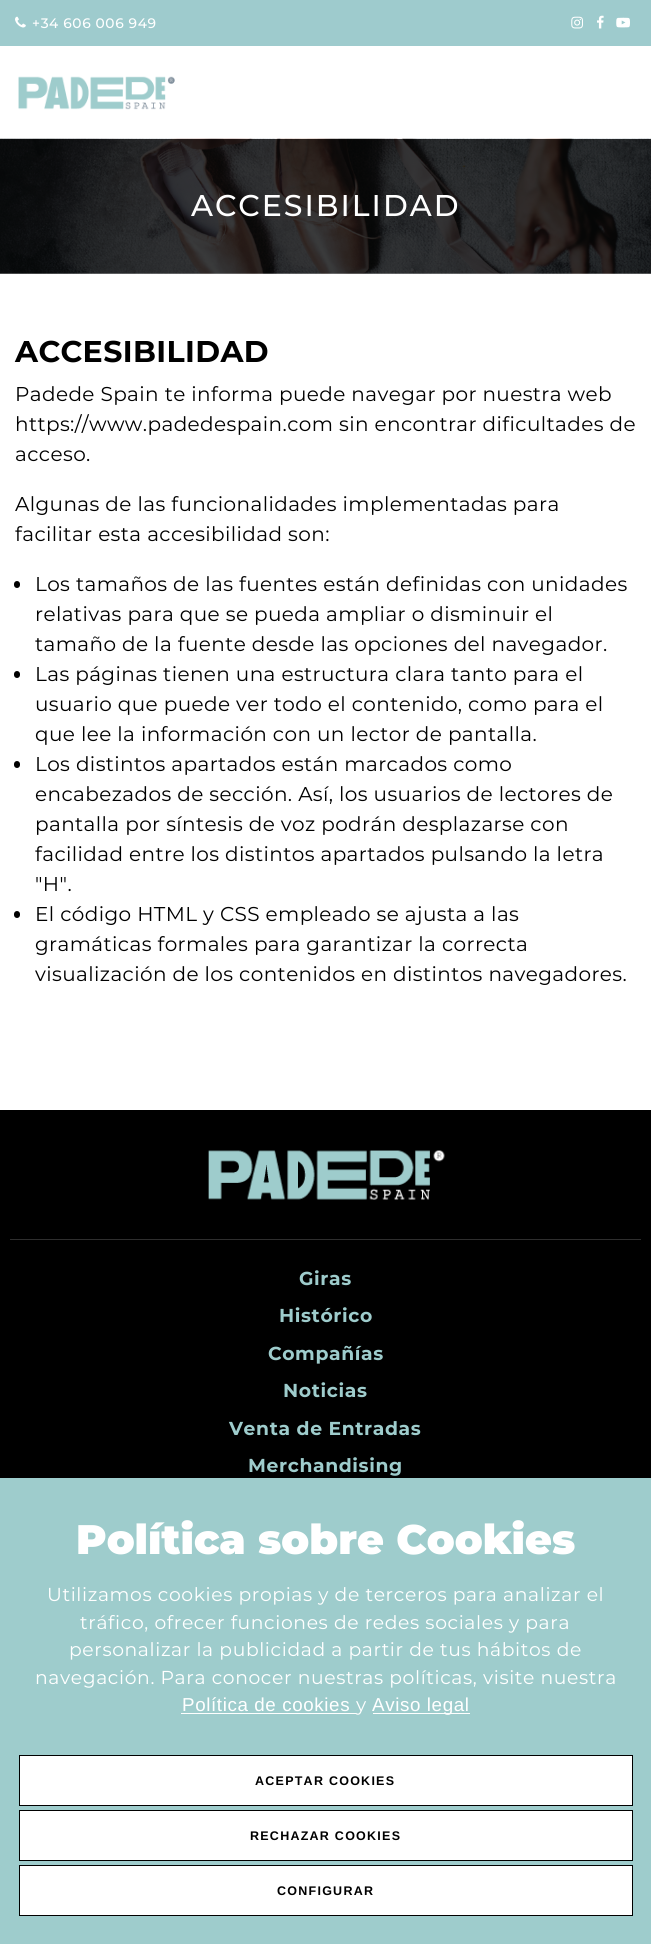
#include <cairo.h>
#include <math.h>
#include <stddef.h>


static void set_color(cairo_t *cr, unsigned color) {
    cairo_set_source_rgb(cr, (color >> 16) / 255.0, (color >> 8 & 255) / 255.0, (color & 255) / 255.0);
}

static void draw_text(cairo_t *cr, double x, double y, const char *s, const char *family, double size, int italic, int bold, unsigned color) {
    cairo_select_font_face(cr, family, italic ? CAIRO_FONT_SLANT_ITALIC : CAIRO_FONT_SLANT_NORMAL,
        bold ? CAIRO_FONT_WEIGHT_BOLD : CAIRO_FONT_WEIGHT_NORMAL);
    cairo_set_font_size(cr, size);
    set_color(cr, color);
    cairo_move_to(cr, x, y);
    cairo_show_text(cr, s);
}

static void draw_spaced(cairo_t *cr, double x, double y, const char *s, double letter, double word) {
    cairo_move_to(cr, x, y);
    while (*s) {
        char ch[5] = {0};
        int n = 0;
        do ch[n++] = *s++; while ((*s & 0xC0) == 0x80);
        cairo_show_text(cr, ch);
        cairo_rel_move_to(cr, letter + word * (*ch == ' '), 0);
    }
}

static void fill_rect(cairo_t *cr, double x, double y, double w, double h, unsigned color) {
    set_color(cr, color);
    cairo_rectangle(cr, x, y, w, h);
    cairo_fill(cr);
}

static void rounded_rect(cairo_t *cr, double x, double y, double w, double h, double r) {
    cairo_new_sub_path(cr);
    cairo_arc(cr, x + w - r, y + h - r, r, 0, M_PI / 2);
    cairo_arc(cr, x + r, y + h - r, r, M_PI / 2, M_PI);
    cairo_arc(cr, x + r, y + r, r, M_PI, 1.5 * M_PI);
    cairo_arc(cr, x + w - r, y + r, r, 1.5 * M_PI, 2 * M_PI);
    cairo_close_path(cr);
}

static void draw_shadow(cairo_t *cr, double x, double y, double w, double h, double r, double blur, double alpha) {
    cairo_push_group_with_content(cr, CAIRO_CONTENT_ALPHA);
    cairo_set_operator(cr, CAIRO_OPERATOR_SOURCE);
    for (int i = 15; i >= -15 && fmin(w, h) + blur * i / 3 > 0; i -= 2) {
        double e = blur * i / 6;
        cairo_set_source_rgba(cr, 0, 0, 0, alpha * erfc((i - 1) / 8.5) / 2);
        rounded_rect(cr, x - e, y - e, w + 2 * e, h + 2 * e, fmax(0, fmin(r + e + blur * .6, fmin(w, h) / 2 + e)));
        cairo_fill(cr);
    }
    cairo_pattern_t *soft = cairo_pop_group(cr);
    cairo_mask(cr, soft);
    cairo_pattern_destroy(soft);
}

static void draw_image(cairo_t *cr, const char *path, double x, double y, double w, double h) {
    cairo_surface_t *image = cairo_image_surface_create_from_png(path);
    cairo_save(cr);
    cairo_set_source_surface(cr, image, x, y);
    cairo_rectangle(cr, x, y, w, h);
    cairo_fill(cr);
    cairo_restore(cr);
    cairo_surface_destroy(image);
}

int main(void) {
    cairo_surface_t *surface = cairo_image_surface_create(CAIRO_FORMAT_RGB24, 651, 1944);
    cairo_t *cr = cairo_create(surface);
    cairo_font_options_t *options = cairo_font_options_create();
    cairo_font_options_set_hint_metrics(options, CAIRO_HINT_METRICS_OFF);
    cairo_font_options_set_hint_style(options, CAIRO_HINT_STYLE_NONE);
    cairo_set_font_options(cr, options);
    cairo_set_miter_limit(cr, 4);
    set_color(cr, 0xFFFFFF);
    cairo_paint(cr);
    fill_rect(cr, 0, 0, 651, 46, 0x9ECBCD);
    draw_image(cr, "assets/img1.png", 15, 16, 11, 12);
    cairo_select_font_face(cr, "Montserrat Medium", CAIRO_FONT_SLANT_NORMAL, CAIRO_FONT_WEIGHT_NORMAL);
    cairo_set_font_size(cr, 13.75);
    set_color(cr, 0xFFFFFF);
    draw_spaced(cr, 32, 28, "+34 606 006 949", 0.62, 0);
    draw_image(cr, "assets/img2.png", 571, 16, 12, 13);
    draw_image(cr, "assets/img3.png", 597, 15, 7, 14);
    draw_image(cr, "assets/img4.png", 616, 17, 14, 11);
    draw_image(cr, "assets/img5.png", 18, 76, 157, 34);
    draw_image(cr, "assets/img6.png", 0, 138, 651, 136);
    cairo_set_font_size(cr, 30);
    draw_spaced(cr, 191, 216, "ACCESIBILIDAD", 2, 0);
    cairo_select_font_face(cr, "Montserrat", CAIRO_FONT_SLANT_NORMAL, CAIRO_FONT_WEIGHT_BOLD);
    set_color(cr, 0x000000);
    draw_spaced(cr, 15, 362, "ACCESIBILIDAD", 0.4, 0);
    cairo_select_font_face(cr, "Montserrat", CAIRO_FONT_SLANT_NORMAL, CAIRO_FONT_WEIGHT_NORMAL);
    cairo_set_font_size(cr, 20);
    draw_spaced(cr, 15, 401, "Padede Spain te informa puede navegar por nuestra web", 0.4, 0);
    draw_spaced(cr, 15, 431, "https://www.padedespain.com sin encontrar dificultades de", 0.4, 0);
    draw_spaced(cr, 15, 461, "acceso.", 0.4, 0);
    draw_spaced(cr, 15, 511, "Algunas de las funcionalidades implementadas para", 0.4, 0);
    draw_spaced(cr, 15, 541, "facilitar esta accesibilidad son:", 0.4, 0);
    rounded_rect(cr, 14, 581, 6, 7, 3);
    cairo_fill(cr);
    draw_spaced(cr, 35, 591, "Los tamaños de las fuentes están definidas con unidades", 0.4, 0);
    draw_spaced(cr, 35, 621, "relativas para que se pueda ampliar o disminuir el", 0.4, 0);
    draw_spaced(cr, 35, 651, "tamaño de la fuente desde las opciones del navegador.", 0.4, 0);
    rounded_rect(cr, 14, 671, 6, 7, 3);
    cairo_fill(cr);
    draw_spaced(cr, 35, 681, "Las páginas tienen una estructura clara tanto para el", 0.4, 0);
    draw_spaced(cr, 35, 711, "usuario que puede ver todo el contenido, como para el", 0.4, 0);
    draw_spaced(cr, 35, 741, "que lee la información con un lector de pantalla.", 0.4, 0);
    rounded_rect(cr, 14, 761, 6, 7, 3);
    cairo_fill(cr);
    draw_spaced(cr, 35, 771, "Los distintos apartados están marcados como", 0.4, 0);
    draw_spaced(cr, 35, 801, "encabezados de sección. Así, los usuarios de lectores de", 0.4, 0);
    draw_spaced(cr, 35, 831, "pantalla por síntesis de voz podrán desplazarse con", 0.4, 0);
    draw_spaced(cr, 35, 861, "facilidad entre los distintos apartados pulsando la letra", 0.4, 0);
    draw_spaced(cr, 35, 891, "\"H\".", 0.4, 0);
    rounded_rect(cr, 14, 911, 6, 7, 3);
    cairo_fill(cr);
    draw_spaced(cr, 35, 921, "El código HTML y CSS empleado se ajusta a las", 0.4, 0);
    draw_spaced(cr, 35, 951, "gramáticas formales para garantizar la correcta", 0.4, 0);
    draw_spaced(cr, 35, 981, "visualización de los contenidos en distintos navegadores.", 0.4, 0);
    fill_rect(cr, 0, 1110, 651, 368, 0x000000);
    draw_image(cr, "assets/img7.png", 208, 1150, 237, 50);
    fill_rect(cr, 10, 1239, 631, 1, 0x2E2E2E);
    cairo_select_font_face(cr, "Montserrat", CAIRO_FONT_SLANT_NORMAL, CAIRO_FONT_WEIGHT_BOLD);
    cairo_set_font_size(cr, 18.75);
    set_color(cr, 0x9ECCCC);
    draw_spaced(cr, 299, 1285, "Giras", 0.62, 0);
    draw_spaced(cr, 279, 1322, "Histórico", 0.62, 0);
    draw_spaced(cr, 268, 1360, "Compañías", 0.62, 0);
    draw_spaced(cr, 283, 1397, "Noticias", 0.62, 0);
    draw_spaced(cr, 229, 1435, "Venta de Entradas", 0.62, 0);
    draw_spaced(cr, 248, 1472, "Merchandising", 0.62, 0);
    set_color(cr, 0x000000);
    draw_shadow(cr, -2, 1480, 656, 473, 0, 4.5, 0.12);
    fill_rect(cr, 0, 1478, 651, 466, 0x9ECCCC);
    draw_text(cr, 76, 1554, "Política sobre Cookies", "Montserrat Black", 41.25, 0, 0, 0xFFFFFF);
    cairo_select_font_face(cr, "Montserrat", CAIRO_FONT_SLANT_NORMAL, CAIRO_FONT_WEIGHT_NORMAL);
    cairo_set_font_size(cr, 18.75);
    draw_spaced(cr, 47, 1601, "Utilizamos cookies propias y de terceros para analizar el", 0.62, 0);
    draw_spaced(cr, 80, 1629, "tráfico, ofrecer funciones de redes sociales y para", 0.62, 0);
    draw_spaced(cr, 69, 1656, "personalizar la publicidad a partir de tus hábitos de", 0.62, 0);
    draw_spaced(cr, 35, 1684, "navegación. Para conocer nuestras políticas, visite nuestra", 0.62, 0);
    cairo_select_font_face(cr, "Liberation Sans", CAIRO_FONT_SLANT_NORMAL, CAIRO_FONT_WEIGHT_NORMAL);
    draw_spaced(cr, 182, 1711, "Política de cookies", 0.62, 0);
    fill_rect(cr, 181, 1713, 175, 1, 0xFFFFFF);
    cairo_select_font_face(cr, "Montserrat", CAIRO_FONT_SLANT_NORMAL, CAIRO_FONT_WEIGHT_NORMAL);
    draw_spaced(cr, 356, 1711, "y", 0.62, 0);
    fill_rect(cr, 373, 1713, 97, 1, 0xFFFFFF);
    cairo_select_font_face(cr, "Liberation Sans", CAIRO_FONT_SLANT_NORMAL, CAIRO_FONT_WEIGHT_NORMAL);
    draw_spaced(cr, 372, 1711, "Aviso legal", 0.62, 0);
    cairo_rectangle(cr, 19.5, 1755.5, 613, 50);
    cairo_fill_preserve(cr);
    set_color(cr, 0x000000);
    cairo_set_line_width(cr, 1);
    cairo_stroke(cr);
    cairo_select_font_face(cr, "Liberation Sans", CAIRO_FONT_SLANT_NORMAL, CAIRO_FONT_WEIGHT_BOLD);
    cairo_set_font_size(cr, 12.5);
    draw_spaced(cr, 255, 1785, "ACEPTAR COOKIES", 1.25, 0);
    set_color(cr, 0xFFFFFF);
    cairo_rectangle(cr, 19.5, 1810.5, 613, 50);
    cairo_fill_preserve(cr);
    set_color(cr, 0x000000);
    cairo_stroke(cr);
    draw_spaced(cr, 250, 1840, "RECHAZAR COOKIES", 1.25, 0);
    set_color(cr, 0xFFFFFF);
    cairo_rectangle(cr, 19.5, 1865.5, 613, 50);
    cairo_fill_preserve(cr);
    set_color(cr, 0x000000);
    cairo_stroke(cr);
    draw_spaced(cr, 277, 1895, "CONFIGURAR", 1.25, 0);
    cairo_surface_write_to_png(surface, "output.png");
    cairo_font_options_destroy(options);
    cairo_destroy(cr);
    cairo_surface_destroy(surface);
    return 0;
}
